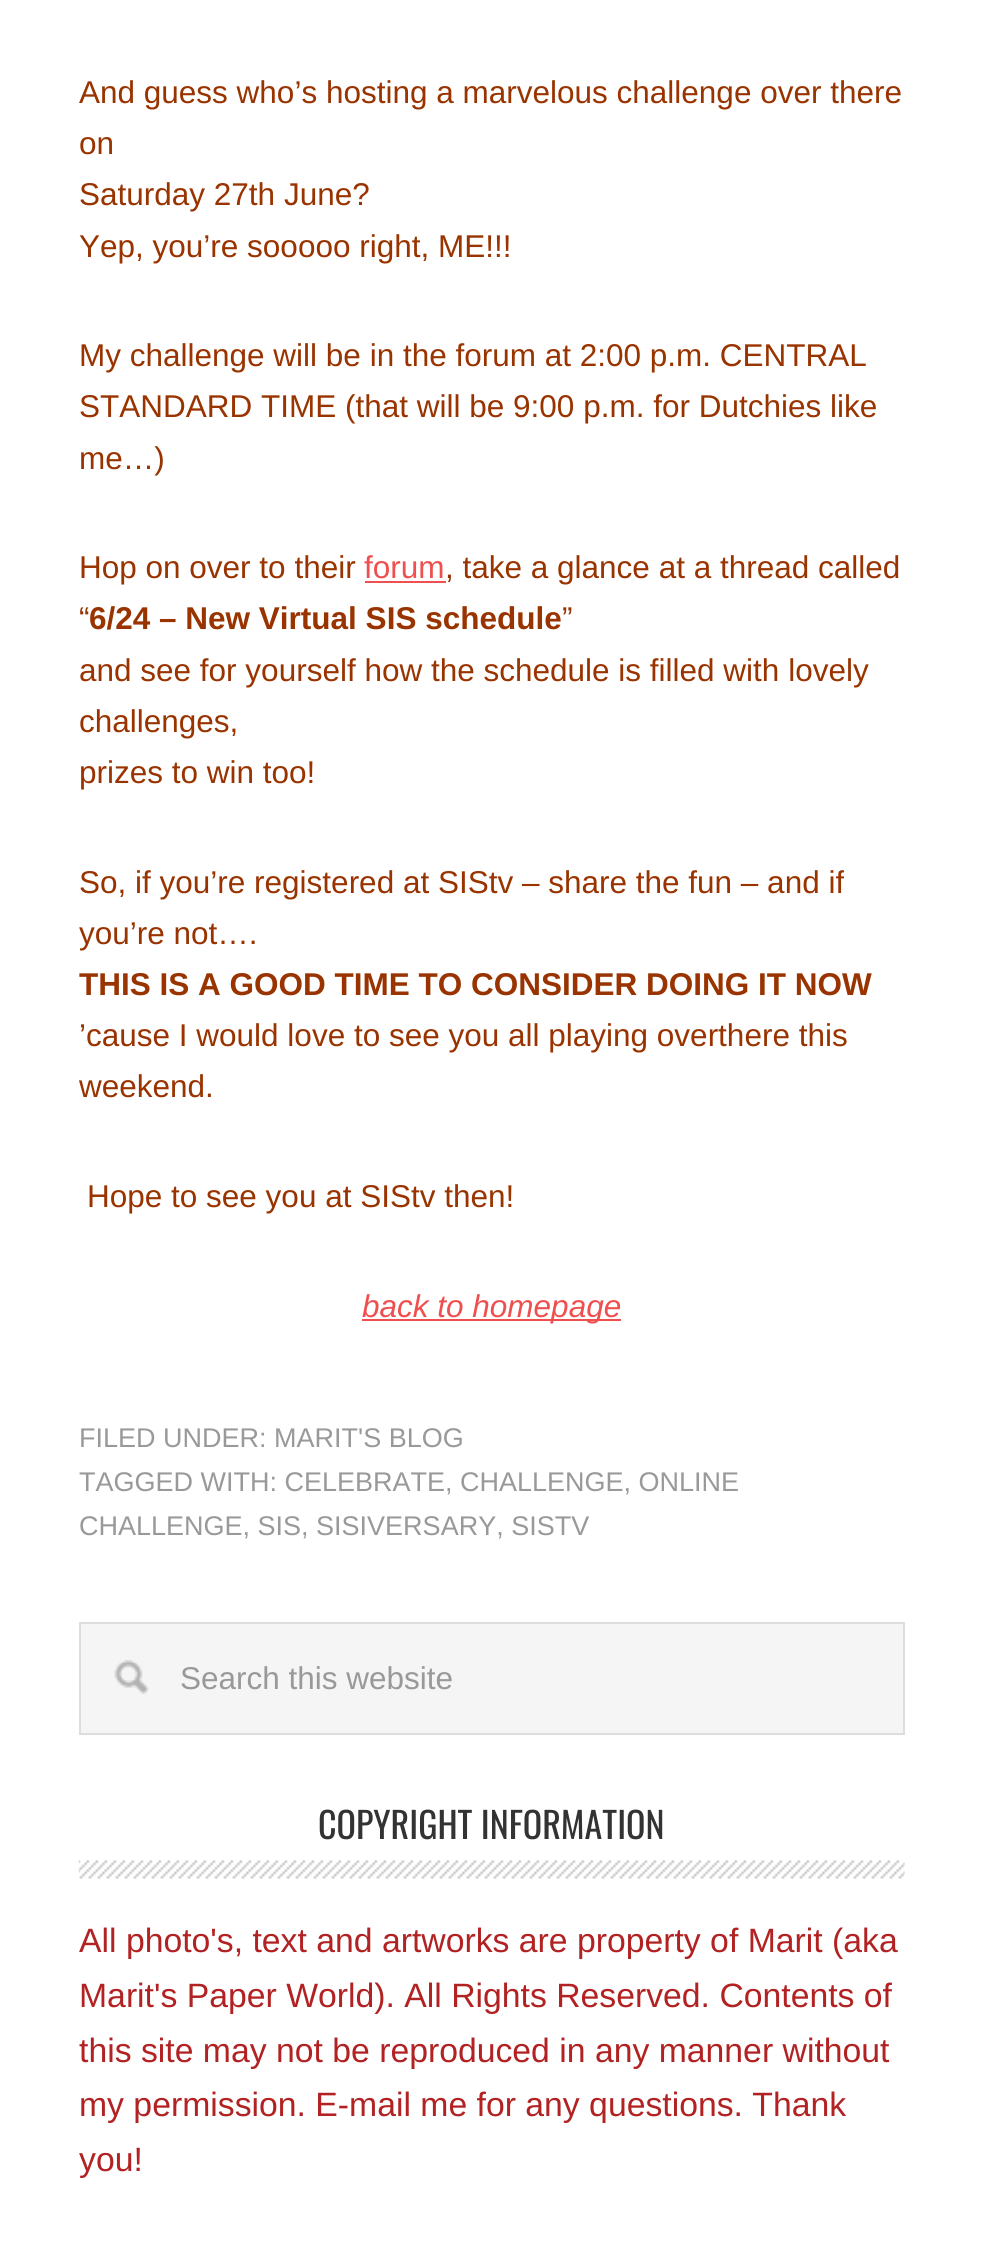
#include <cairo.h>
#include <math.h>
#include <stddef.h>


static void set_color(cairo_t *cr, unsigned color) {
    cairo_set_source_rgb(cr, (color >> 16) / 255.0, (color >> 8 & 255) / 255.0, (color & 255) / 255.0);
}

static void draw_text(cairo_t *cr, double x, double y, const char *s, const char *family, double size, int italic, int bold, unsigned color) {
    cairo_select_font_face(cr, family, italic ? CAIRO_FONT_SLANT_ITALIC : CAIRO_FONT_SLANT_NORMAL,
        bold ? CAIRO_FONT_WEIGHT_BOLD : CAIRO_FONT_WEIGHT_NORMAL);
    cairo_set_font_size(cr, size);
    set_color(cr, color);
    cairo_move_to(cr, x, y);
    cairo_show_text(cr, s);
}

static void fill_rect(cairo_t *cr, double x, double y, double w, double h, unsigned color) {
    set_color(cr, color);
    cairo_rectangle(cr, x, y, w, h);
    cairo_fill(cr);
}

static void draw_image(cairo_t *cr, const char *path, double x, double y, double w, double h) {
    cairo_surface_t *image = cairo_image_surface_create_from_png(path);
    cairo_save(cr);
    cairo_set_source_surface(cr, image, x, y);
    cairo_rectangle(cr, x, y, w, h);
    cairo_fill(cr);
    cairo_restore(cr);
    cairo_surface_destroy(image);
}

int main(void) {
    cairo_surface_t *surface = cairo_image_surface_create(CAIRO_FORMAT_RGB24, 983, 2261);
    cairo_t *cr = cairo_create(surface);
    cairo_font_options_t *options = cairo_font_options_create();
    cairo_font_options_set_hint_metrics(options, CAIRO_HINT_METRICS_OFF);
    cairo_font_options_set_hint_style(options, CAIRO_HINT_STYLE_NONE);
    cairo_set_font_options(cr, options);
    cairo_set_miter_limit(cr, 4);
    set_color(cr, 0xFFFFFF);
    cairo_paint(cr);
    draw_text(cr, 79, 103, "And guess who’s hosting a marvelous challenge over there", "Liberation Sans", 31.5, 0, 0, 0x993300);
    draw_text(cr, 79, 154, "on", "Liberation Sans", 31.5, 0, 0, 0x993300);
    draw_text(cr, 79, 205, "Saturday 27th June?", "Liberation Sans", 31.5, 0, 0, 0x993300);
    draw_text(cr, 79, 257, "Yep, you’re sooooo right, ME!!!", "Liberation Sans", 31.5, 0, 0, 0x993300);
    draw_text(cr, 79, 366, "My challenge will be in the forum at 2:00 p.m. CENTRAL", "Liberation Sans", 31.5, 0, 0, 0x993300);
    draw_text(cr, 79, 417, "STANDARD TIME (that will be 9:00 p.m. for Dutchies like", "Liberation Sans", 31.5, 0, 0, 0x993300);
    draw_text(cr, 79, 469, "me…)", "Liberation Sans", 31.5, 0, 0, 0x993300);
    draw_text(cr, 79, 578, "Hop on over to their", "Liberation Sans", 31.5, 0, 0, 0x993300);
    draw_text(cr, 364, 578, "forum", "Liberation Sans", 31.5, 0, 0, 0xEF4F4F);
    draw_text(cr, 445, 578, ", take a glance at a thread called", "Liberation Sans", 31.5, 0, 0, 0x993300);
    fill_rect(cr, 365, 581, 81, 2, 0xEF4F4F);
    draw_text(cr, 79, 629, "“", "Liberation Sans", 31.5, 0, 0, 0x993300);
    draw_text(cr, 89, 629, "6/24 – New Virtual SIS schedule", "Liberation Sans", 31.5, 0, 1, 0x993300);
    draw_text(cr, 562, 629, "”", "Liberation Sans", 31.5, 0, 0, 0x993300);
    draw_text(cr, 79, 681, "and see for yourself how the schedule is filled with lovely", "Liberation Sans", 31.5, 0, 0, 0x993300);
    draw_text(cr, 79, 732, "challenges,", "Liberation Sans", 31.5, 0, 0, 0x993300);
    draw_text(cr, 79, 783, "prizes to win too!", "Liberation Sans", 31.5, 0, 0, 0x993300);
    draw_text(cr, 79, 893, "So, if you’re registered at SIStv – share the fun – and if", "Liberation Sans", 31.5, 0, 0, 0x993300);
    draw_text(cr, 79, 944, "you’re not….", "Liberation Sans", 31.5, 0, 0, 0x993300);
    draw_text(cr, 79, 995, "THIS IS A GOOD TIME TO CONSIDER DOING IT NOW", "Liberation Sans", 31.5, 0, 1, 0x993300);
    draw_text(cr, 79, 1046, "’cause I would love to see you all playing overthere this", "Liberation Sans", 31.5, 0, 0, 0x993300);
    draw_text(cr, 79, 1097, "weekend.", "Liberation Sans", 31.5, 0, 0, 0x993300);
    draw_text(cr, 87, 1207, "Hope to see you at SIStv then!", "Liberation Sans", 31.5, 0, 0, 0x993300);
    fill_rect(cr, 362, 1319, 259, 2, 0xEF4F4F);
    draw_text(cr, 362, 1317, "back to homepage", "Liberation Sans", 31.5, 1, 0, 0xEF4F4F);
    draw_text(cr, 79, 1447, "FILED UNDER: MARIT'S BLOG", "Liberation Sans", 27, 0, 0, 0x999999);
    draw_text(cr, 79, 1491, "TAGGED WITH: CELEBRATE, CHALLENGE, ONLINE", "Liberation Sans", 27, 0, 0, 0x999999);
    draw_text(cr, 79, 1535, "CHALLENGE, SIS, SISIVERSARY, SISTV", "Liberation Sans", 27, 0, 0, 0x999999);
    fill_rect(cr, 81, 1624, 822, 109, 0xF5F5F5);
    draw_image(cr, "assets/img1.png", 114, 1660, 35, 34);
    cairo_rectangle(cr, 80, 1623, 824, 111);
    set_color(cr, 0xDDDDDD);
    cairo_stroke(cr);
    draw_text(cr, 180, 1689, "Search this website", "Liberation Sans", 31.5, 0, 0, 0x999999);
    draw_image(cr, "assets/img2.png", 78, 1860, 827, 19);
    draw_text(cr, 318, 1839, "COPYRIGHT INFORMATION", "Oswald", 36, 0, 0, 0x333333);
    draw_text(cr, 79, 1952, "All photo's, text and artworks are property of Marit (aka", "Liberation Sans", 33.75, 0, 0, 0xB22222);
    draw_text(cr, 79, 2007, "Marit's Paper World). All Rights Reserved. Contents of", "Liberation Sans", 33.75, 0, 0, 0xB22222);
    draw_text(cr, 79, 2062, "this site may not be reproduced in any manner without", "Liberation Sans", 33.75, 0, 0, 0xB22222);
    draw_text(cr, 79, 2116, "my permission. E-mail me for any questions. Thank", "Liberation Sans", 33.75, 0, 0, 0xB22222);
    draw_text(cr, 79, 2171, "you!", "Liberation Sans", 33.75, 0, 0, 0xB22222);
    cairo_surface_write_to_png(surface, "output.png");
    cairo_font_options_destroy(options);
    cairo_destroy(cr);
    cairo_surface_destroy(surface);
    return 0;
}
